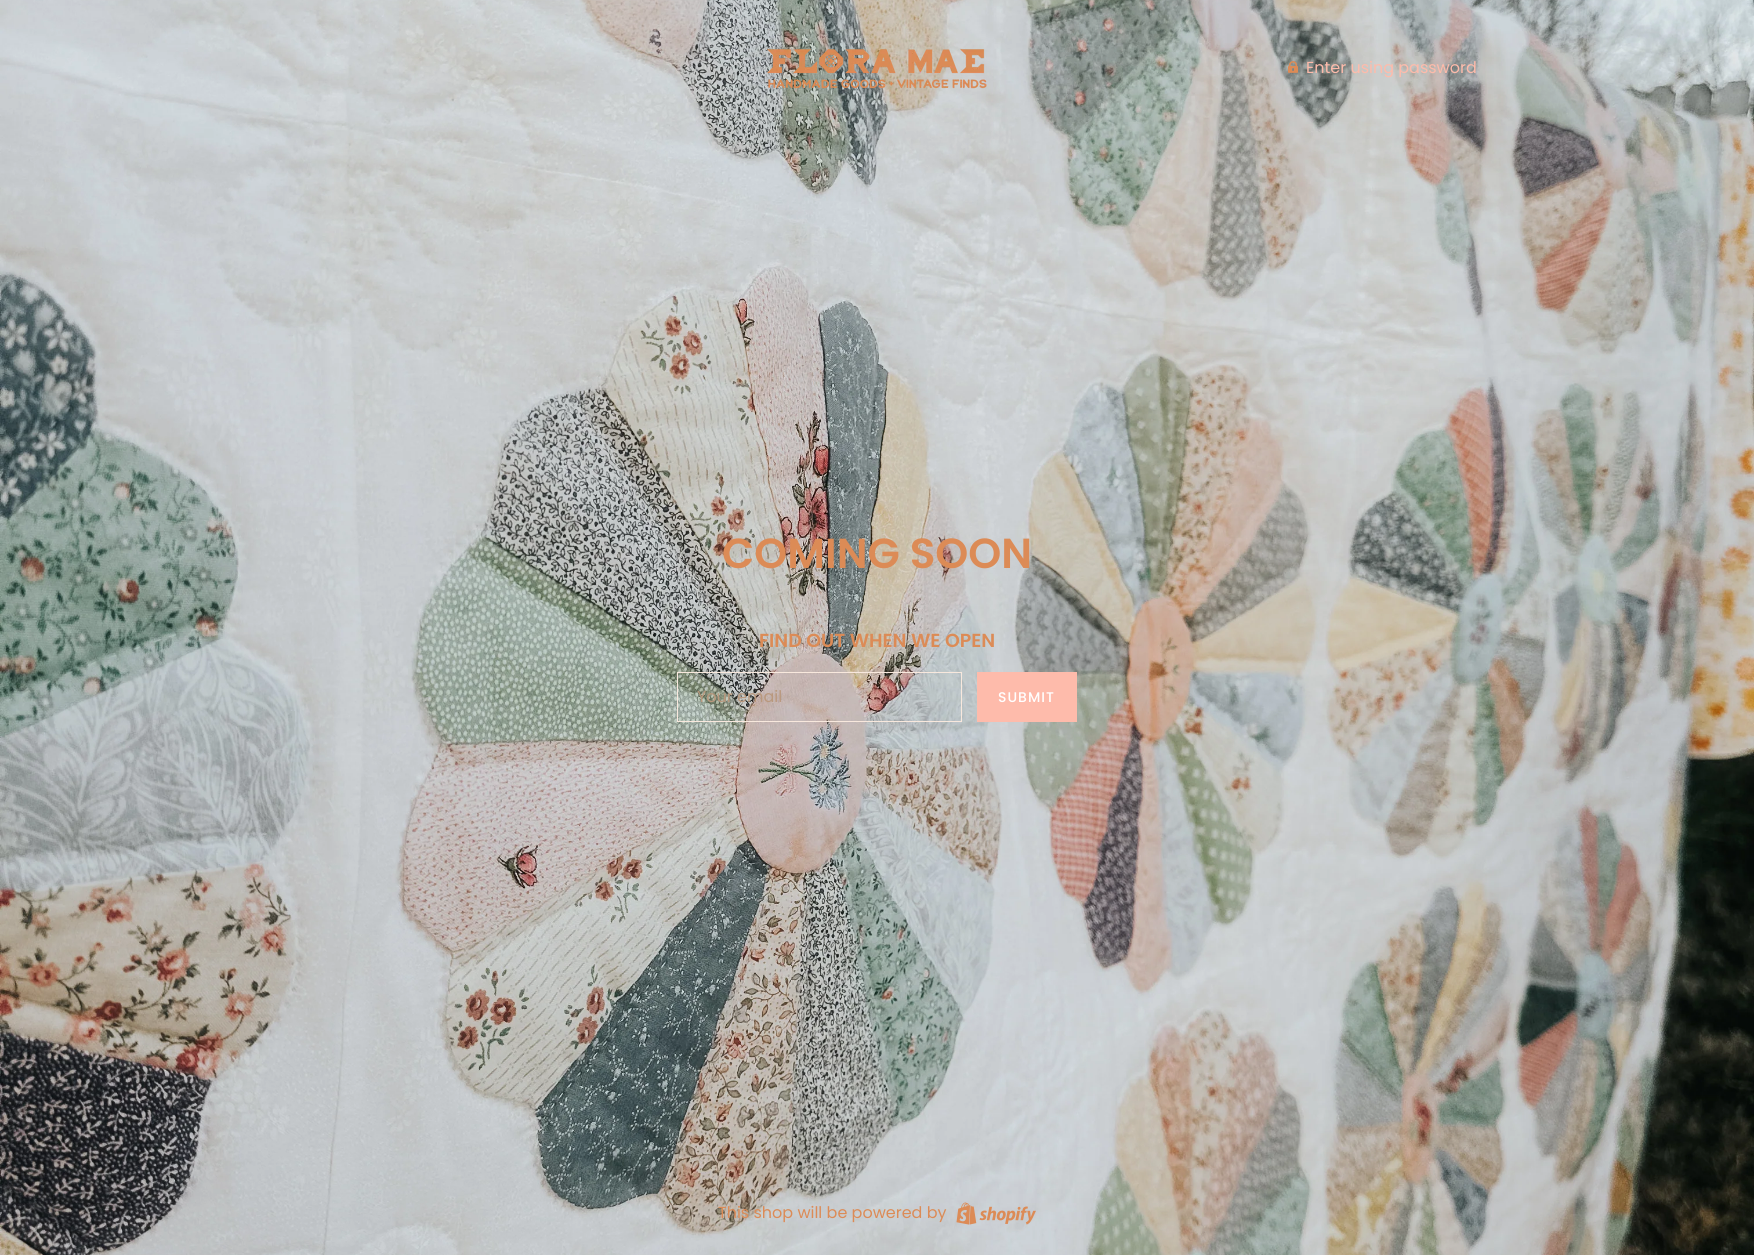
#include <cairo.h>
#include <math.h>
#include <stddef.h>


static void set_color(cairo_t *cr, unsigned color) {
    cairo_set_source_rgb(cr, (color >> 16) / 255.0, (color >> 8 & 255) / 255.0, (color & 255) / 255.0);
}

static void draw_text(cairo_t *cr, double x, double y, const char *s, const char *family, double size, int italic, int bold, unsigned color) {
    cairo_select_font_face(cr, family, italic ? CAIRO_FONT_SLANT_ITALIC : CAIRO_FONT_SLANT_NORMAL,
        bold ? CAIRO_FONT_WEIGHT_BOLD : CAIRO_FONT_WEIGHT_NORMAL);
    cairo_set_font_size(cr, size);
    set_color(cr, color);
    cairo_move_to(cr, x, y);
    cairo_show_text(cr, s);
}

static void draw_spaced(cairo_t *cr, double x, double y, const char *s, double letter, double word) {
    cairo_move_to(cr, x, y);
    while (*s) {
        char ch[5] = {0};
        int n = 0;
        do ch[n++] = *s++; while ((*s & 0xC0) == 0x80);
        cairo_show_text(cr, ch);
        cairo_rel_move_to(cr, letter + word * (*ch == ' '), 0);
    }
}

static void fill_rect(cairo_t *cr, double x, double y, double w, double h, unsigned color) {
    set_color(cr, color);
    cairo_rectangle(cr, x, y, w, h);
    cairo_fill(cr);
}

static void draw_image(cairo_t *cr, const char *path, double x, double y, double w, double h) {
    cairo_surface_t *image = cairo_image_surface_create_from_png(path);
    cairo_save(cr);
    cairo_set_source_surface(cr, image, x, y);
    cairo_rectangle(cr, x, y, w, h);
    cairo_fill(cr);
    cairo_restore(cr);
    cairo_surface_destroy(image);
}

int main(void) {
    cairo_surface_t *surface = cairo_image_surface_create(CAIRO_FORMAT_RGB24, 1754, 1255);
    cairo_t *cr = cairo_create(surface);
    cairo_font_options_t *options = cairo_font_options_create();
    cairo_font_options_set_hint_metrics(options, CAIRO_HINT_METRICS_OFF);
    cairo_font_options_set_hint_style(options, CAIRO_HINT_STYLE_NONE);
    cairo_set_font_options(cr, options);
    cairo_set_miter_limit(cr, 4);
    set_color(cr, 0xFFFFFF);
    cairo_paint(cr);
    draw_image(cr, "assets/img1.png", 0, 0, 1754, 1255);
    draw_image(cr, "assets/img2.png", 767, 48, 220, 41);
    draw_image(cr, "assets/img3.png", 1288, 61, 10, 12);
    draw_text(cr, 1306, 73, "Enter using password", "Poppins", 16, 0, 0, 0xFEBBAB);
    draw_text(cr, 722, 568, "COMING SOON", "Poppins SemiBold", 42, 0, 0, 0xDC8B56);
    draw_text(cr, 759, 647, "FIND OUT WHEN WE OPEN", "Poppins SemiBold", 18.9, 0, 0, 0xDC8B56);
    cairo_rectangle(cr, 677.5, 672.5, 284, 49);
    set_color(cr, 0xF8E8DD);
    cairo_set_line_width(cr, 1);
    cairo_stroke(cr);
    draw_text(cr, 697, 702, "Your email", "Poppins", 16, 0, 0, 0xB9987D);
    fill_rect(cr, 977, 672, 100, 50, 0xFEBBAB);
    cairo_select_font_face(cr, "Poppins Medium", CAIRO_FONT_SLANT_NORMAL, CAIRO_FONT_WEIGHT_NORMAL);
    cairo_set_font_size(cr, 14);
    set_color(cr, 0xFFFFFF);
    draw_spaced(cr, 998, 702, "SUBMIT", 1, 0);
    draw_text(cr, 718, 1218, "This shop will be powered by", "Poppins", 16, 0, 0, 0xDC8B56);
    draw_image(cr, "assets/img4.png", 956, 1202, 80, 23);
    cairo_surface_write_to_png(surface, "output.png");
    cairo_font_options_destroy(options);
    cairo_destroy(cr);
    cairo_surface_destroy(surface);
    return 0;
}
